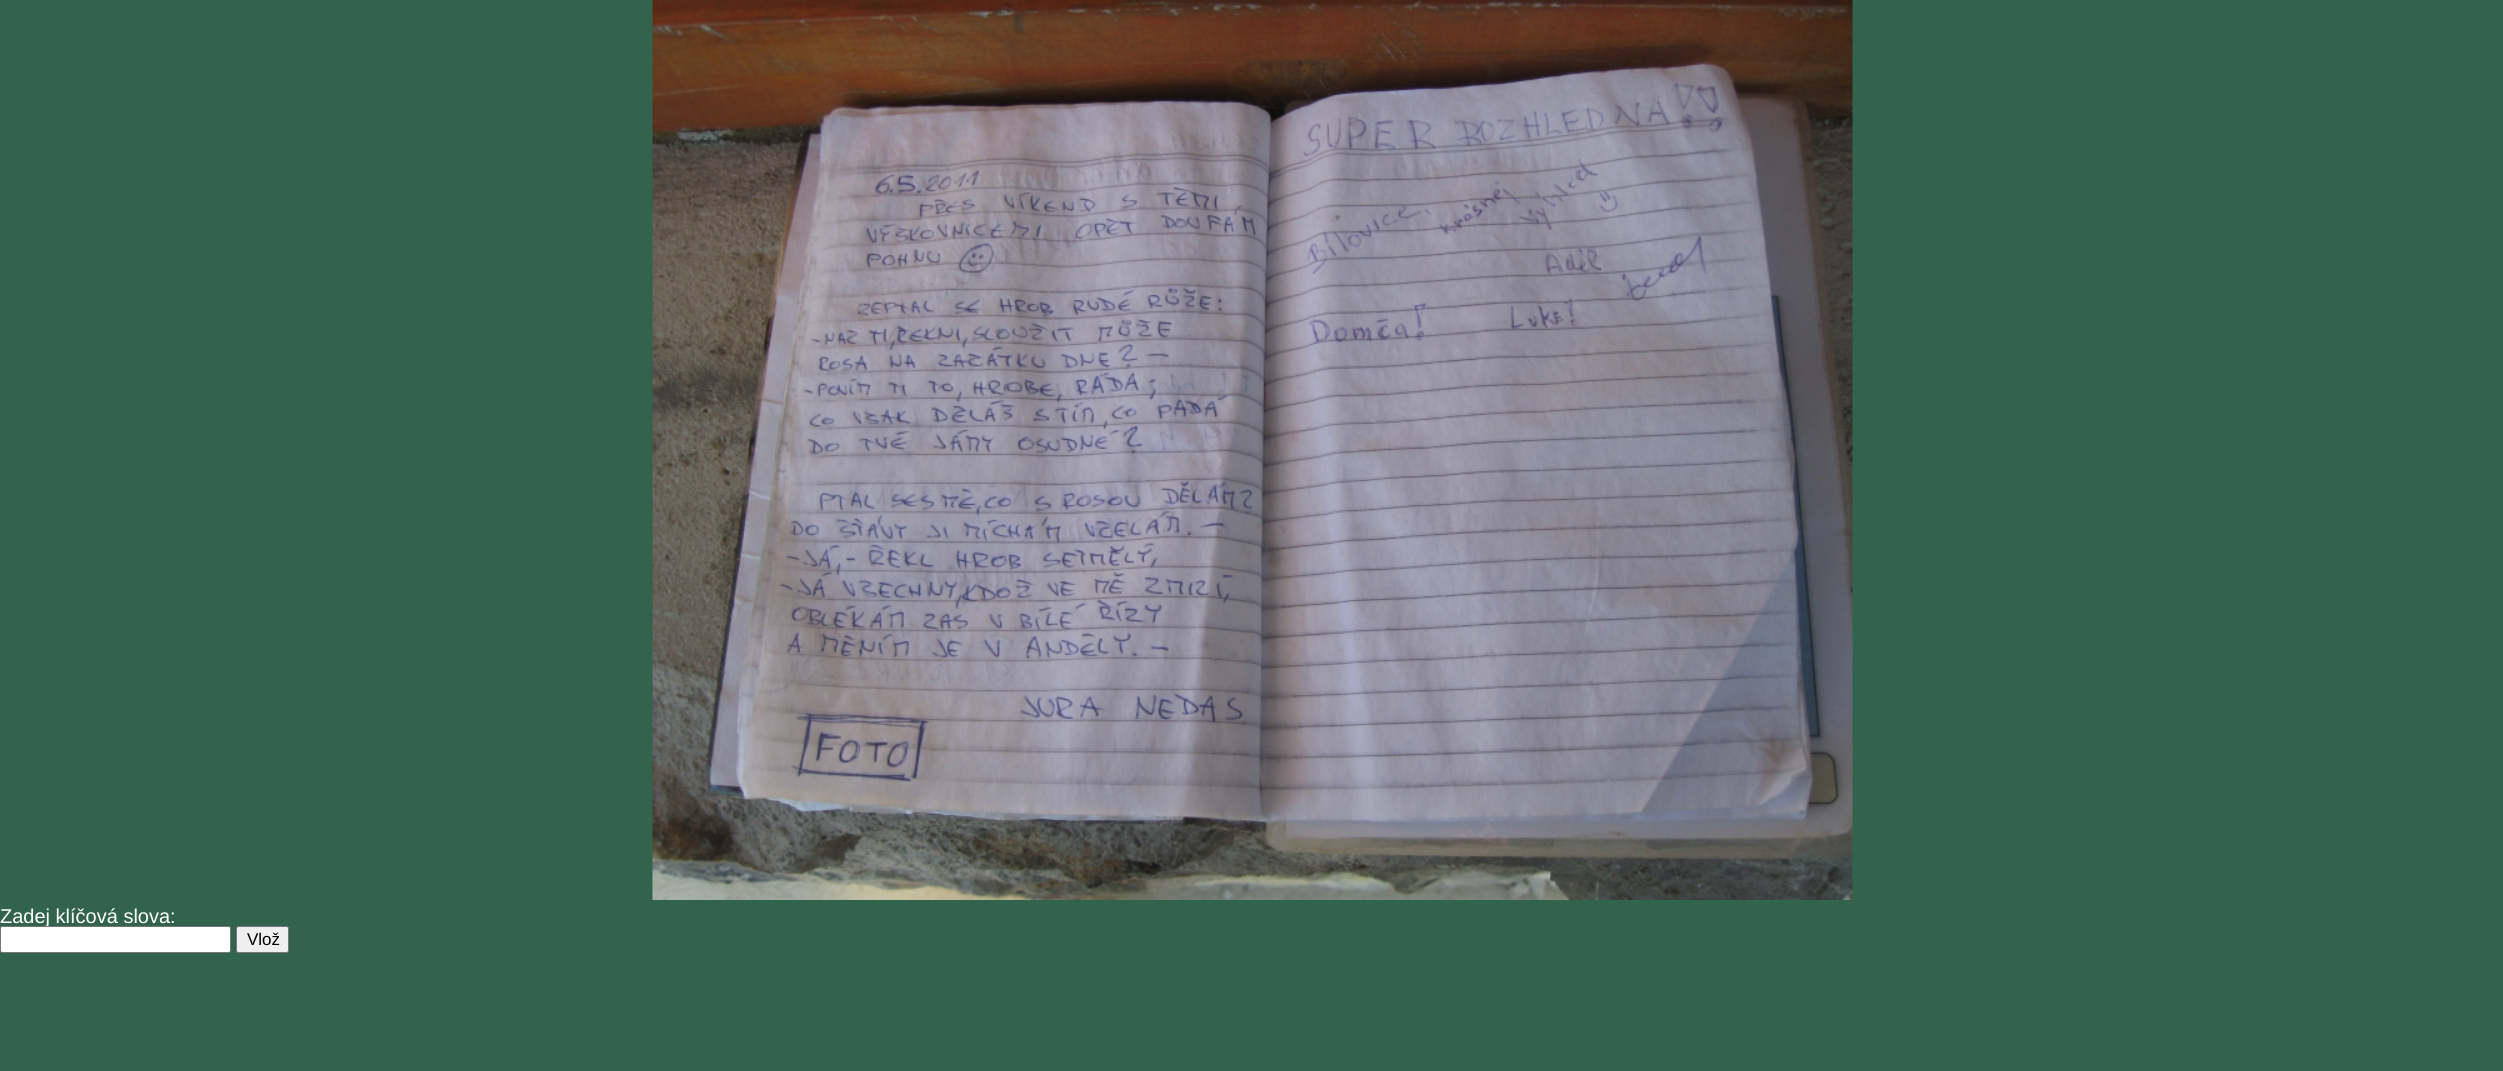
#include <cairo.h>
#include <math.h>
#include <stddef.h>


static void set_color(cairo_t *cr, unsigned color) {
    cairo_set_source_rgb(cr, (color >> 16) / 255.0, (color >> 8 & 255) / 255.0, (color & 255) / 255.0);
}

static void draw_text(cairo_t *cr, double x, double y, const char *s, const char *family, double size, int italic, int bold, unsigned color) {
    cairo_select_font_face(cr, family, italic ? CAIRO_FONT_SLANT_ITALIC : CAIRO_FONT_SLANT_NORMAL,
        bold ? CAIRO_FONT_WEIGHT_BOLD : CAIRO_FONT_WEIGHT_NORMAL);
    cairo_set_font_size(cr, size);
    set_color(cr, color);
    cairo_move_to(cr, x, y);
    cairo_show_text(cr, s);
}

static void rounded_rect(cairo_t *cr, double x, double y, double w, double h, double r) {
    cairo_new_sub_path(cr);
    cairo_arc(cr, x + w - r, y + h - r, r, 0, M_PI / 2);
    cairo_arc(cr, x + r, y + h - r, r, M_PI / 2, M_PI);
    cairo_arc(cr, x + r, y + r, r, M_PI, 1.5 * M_PI);
    cairo_arc(cr, x + w - r, y + r, r, 1.5 * M_PI, 2 * M_PI);
    cairo_close_path(cr);
}

static void draw_image(cairo_t *cr, const char *path, double x, double y, double w, double h) {
    cairo_surface_t *image = cairo_image_surface_create_from_png(path);
    cairo_save(cr);
    cairo_set_source_surface(cr, image, x, y);
    cairo_rectangle(cr, x, y, w, h);
    cairo_fill(cr);
    cairo_restore(cr);
    cairo_surface_destroy(image);
}

int main(void) {
    cairo_surface_t *surface = cairo_image_surface_create(CAIRO_FORMAT_RGB24, 2503, 1071);
    cairo_t *cr = cairo_create(surface);
    cairo_font_options_t *options = cairo_font_options_create();
    cairo_font_options_set_hint_metrics(options, CAIRO_HINT_METRICS_OFF);
    cairo_font_options_set_hint_style(options, CAIRO_HINT_STYLE_NONE);
    cairo_set_font_options(cr, options);
    cairo_set_miter_limit(cr, 4);
    set_color(cr, 0x32644D);
    cairo_paint(cr);
    draw_image(cr, "assets/img1.png", 652, 0, 1201, 900);
    draw_text(cr, 0, 923, "Zadej klíčová slova:", "Liberation Sans", 20, 0, 0, 0xFFFFFF);
    rounded_rect(cr, 0.5, 926.5, 230, 26, 2);
    cairo_fill_preserve(cr);
    set_color(cr, 0x767676);
    cairo_set_line_width(cr, 1);
    cairo_stroke(cr);
    set_color(cr, 0xEFEFEF);
    rounded_rect(cr, 236.5, 926.5, 52, 26, 2);
    cairo_fill_preserve(cr);
    set_color(cr, 0x767676);
    cairo_stroke(cr);
    draw_text(cr, 247, 945, "Vlož", "Liberation Sans", 17, 0, 0, 0x000000);
    cairo_surface_write_to_png(surface, "output.png");
    cairo_font_options_destroy(options);
    cairo_destroy(cr);
    cairo_surface_destroy(surface);
    return 0;
}
